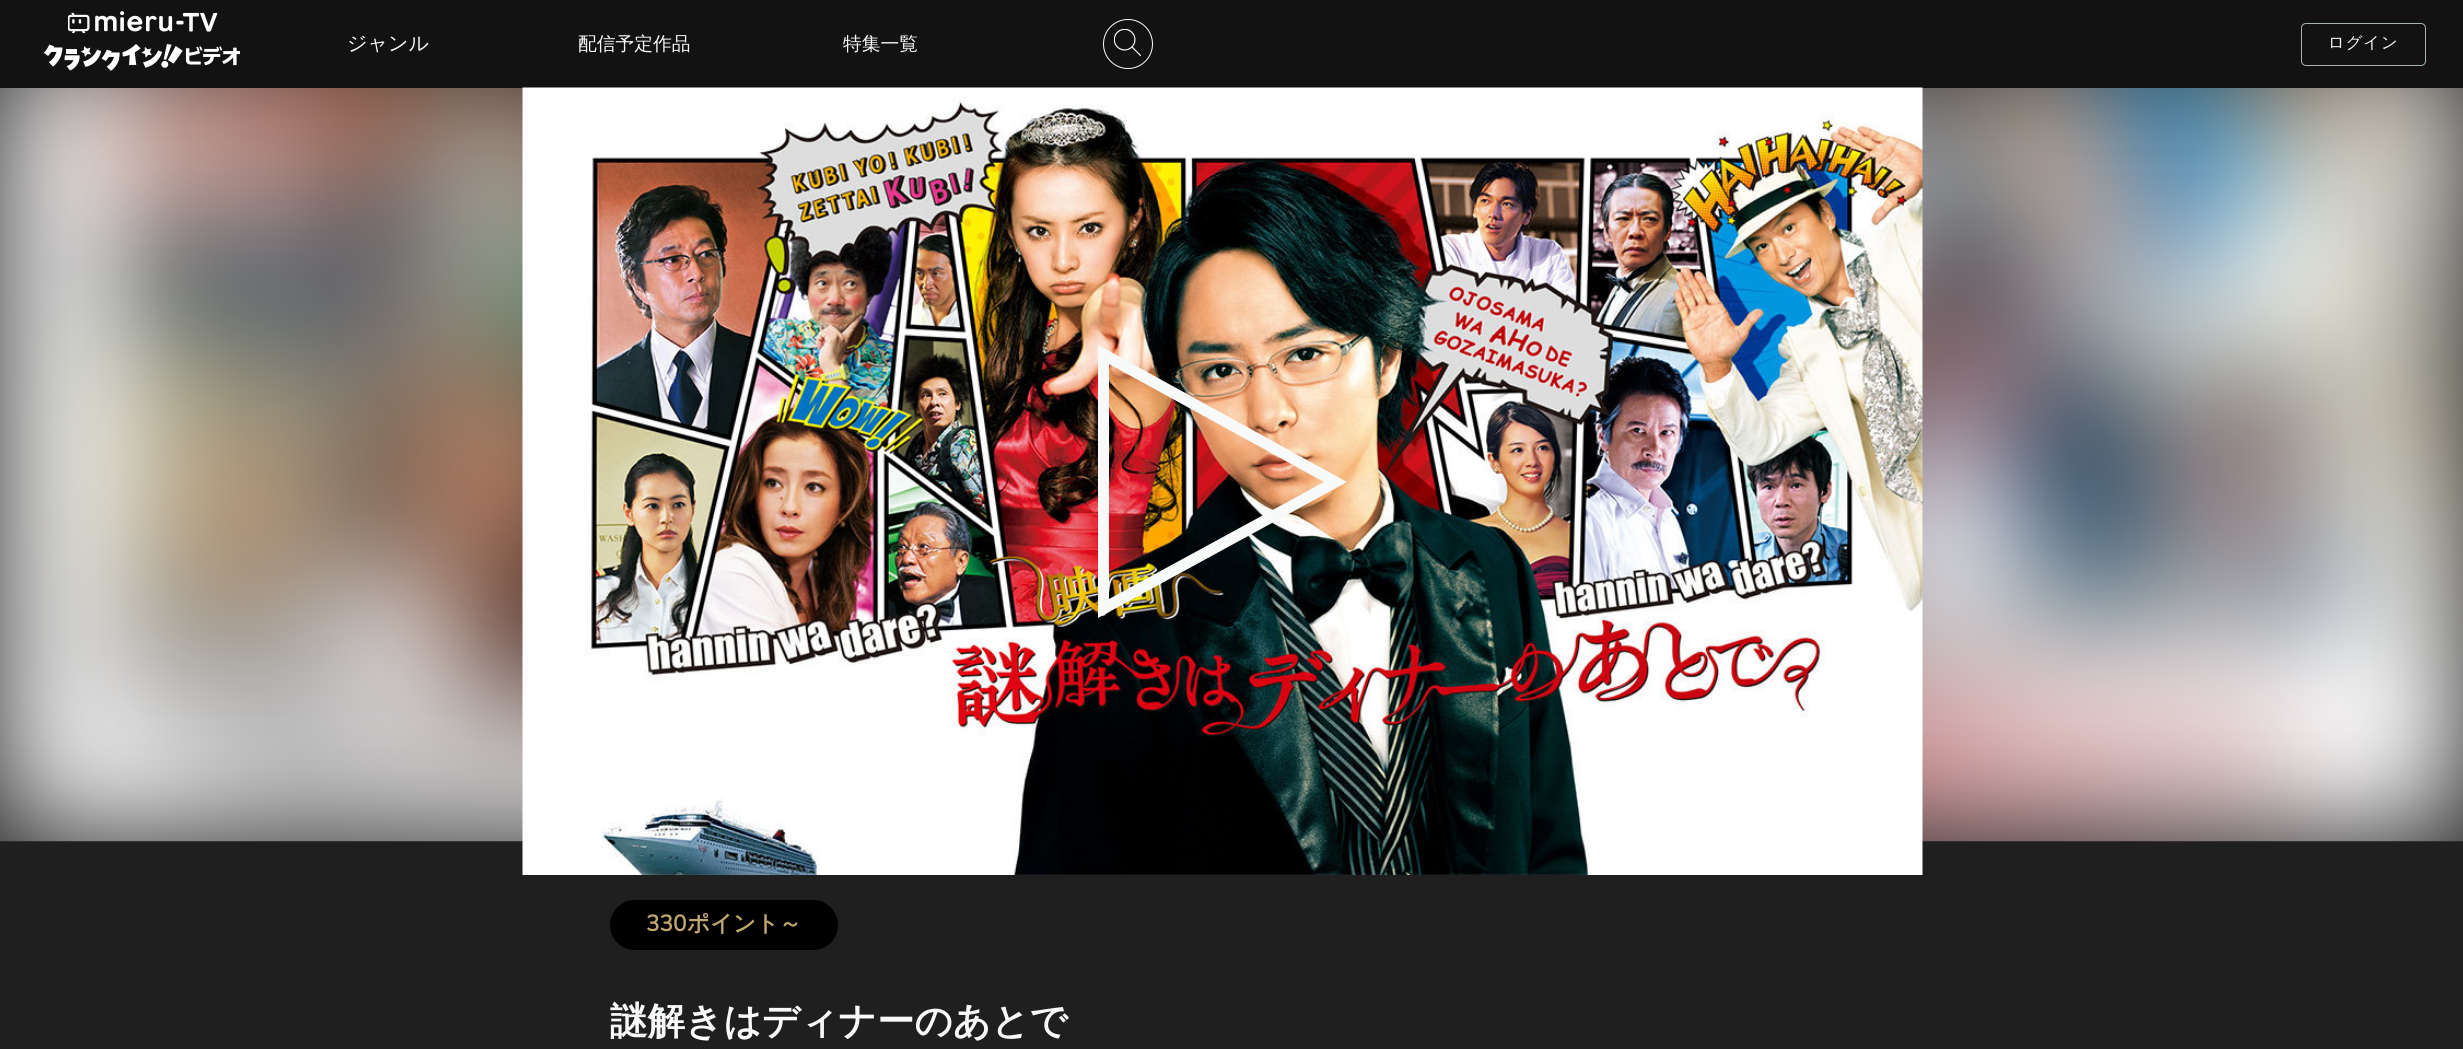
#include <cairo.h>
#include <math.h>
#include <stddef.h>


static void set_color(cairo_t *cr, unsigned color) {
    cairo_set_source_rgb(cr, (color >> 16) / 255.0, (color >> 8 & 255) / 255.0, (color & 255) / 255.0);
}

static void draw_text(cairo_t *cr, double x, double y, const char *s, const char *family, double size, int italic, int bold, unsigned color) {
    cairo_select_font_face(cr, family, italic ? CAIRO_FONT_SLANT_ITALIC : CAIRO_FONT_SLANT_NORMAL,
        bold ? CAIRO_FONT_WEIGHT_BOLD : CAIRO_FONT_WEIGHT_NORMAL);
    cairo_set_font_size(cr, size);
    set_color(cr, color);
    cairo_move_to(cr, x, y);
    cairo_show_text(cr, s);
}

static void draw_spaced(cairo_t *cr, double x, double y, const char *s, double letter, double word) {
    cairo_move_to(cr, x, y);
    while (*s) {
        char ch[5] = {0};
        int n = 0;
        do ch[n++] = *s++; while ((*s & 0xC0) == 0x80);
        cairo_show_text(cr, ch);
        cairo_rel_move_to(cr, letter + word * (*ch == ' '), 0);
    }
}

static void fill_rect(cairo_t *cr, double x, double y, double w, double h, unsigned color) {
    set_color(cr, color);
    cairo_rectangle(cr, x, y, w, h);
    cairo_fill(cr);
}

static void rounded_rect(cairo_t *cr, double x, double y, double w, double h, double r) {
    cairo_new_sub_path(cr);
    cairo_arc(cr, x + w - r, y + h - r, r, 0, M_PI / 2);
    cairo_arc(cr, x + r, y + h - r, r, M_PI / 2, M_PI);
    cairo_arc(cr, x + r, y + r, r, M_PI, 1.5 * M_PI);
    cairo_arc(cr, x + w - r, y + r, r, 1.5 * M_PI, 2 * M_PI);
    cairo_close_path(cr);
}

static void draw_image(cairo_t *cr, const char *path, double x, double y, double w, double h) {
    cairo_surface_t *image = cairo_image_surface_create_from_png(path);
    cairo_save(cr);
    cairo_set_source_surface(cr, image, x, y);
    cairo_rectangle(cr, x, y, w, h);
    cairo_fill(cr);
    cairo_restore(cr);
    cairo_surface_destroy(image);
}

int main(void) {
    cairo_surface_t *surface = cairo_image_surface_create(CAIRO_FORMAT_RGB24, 2463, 1049);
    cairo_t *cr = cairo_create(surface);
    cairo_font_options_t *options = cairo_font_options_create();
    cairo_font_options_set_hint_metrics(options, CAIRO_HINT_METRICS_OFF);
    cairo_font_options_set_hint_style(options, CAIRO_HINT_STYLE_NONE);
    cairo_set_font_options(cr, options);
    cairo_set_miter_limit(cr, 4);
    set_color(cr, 0x1F1F20);
    cairo_paint(cr);
    fill_rect(cr, 0, 0, 2463, 88, 0x121213);
    draw_image(cr, "assets/img1.png", 68, 11, 150, 23);
    draw_image(cr, "assets/img2.png", 44, 44, 196, 27);
    draw_text(cr, 347, 50, "ジャンル", "WenQuanYi Zen Hei Medium", 20, 0, 0, 0xF8F9F9);
    draw_text(cr, 578, 50, "配信予定作品", "WenQuanYi Zen Hei Medium", 18.75, 0, 0, 0xF8F9F9);
    draw_text(cr, 843, 50, "特集一覧", "WenQuanYi Zen Hei Medium", 18.75, 0, 0, 0xF8F9F9);
    cairo_new_path(cr);
    cairo_arc(cr, 1128, 44, 24.5, 0, 2 * M_PI);
    cairo_set_line_width(cr, 1);
    cairo_stroke(cr);
    draw_image(cr, "assets/img3.png", 1114, 29, 27, 27);
    rounded_rect(cr, 2301.5, 23.5, 124, 42, 4.5);
    set_color(cr, 0xA6B2B2);
    cairo_stroke(cr);
    cairo_set_font_size(cr, 16.25);
    set_color(cr, 0xF8F9F9);
    draw_spaced(cr, 2328, 48, "ログイン", 1, 0);
    draw_image(cr, "assets/img5.png", 0, 88, 2463, 754);
    draw_image(cr, "assets/img4.png", 522, 87, 1401, 788);
    cairo_set_fill_rule(cr, CAIRO_FILL_RULE_EVEN_ODD);
    cairo_new_path(cr);
    cairo_move_to(cr, 1347, 482);
    cairo_line_to(cr, 1098, 618);
    cairo_line_to(cr, 1098, 345);
    cairo_close_path(cr);
    cairo_move_to(cr, 1109, 599);
    cairo_line_to(cr, 1324, 482);
    cairo_line_to(cr, 1109, 364);
    cairo_close_path(cr);
    cairo_fill(cr);
    set_color(cr, 0x000000);
    rounded_rect(cr, 610, 900, 228, 50, 25);
    cairo_fill(cr);
    draw_text(cr, 646, 931, "330", "Nunito", 22.5, 0, 1, 0xC0A76E);
    draw_text(cr, 687, 931, "ポイント～", "WenQuanYi Zen Hei", 22.5, 0, 1, 0xC0A76E);
    draw_text(cr, 610, 1034, "謎解きはディナーのあとで", "WenQuanYi Zen Hei", 37.5, 0, 1, 0xF8F9F9);
    cairo_surface_write_to_png(surface, "output.png");
    cairo_font_options_destroy(options);
    cairo_destroy(cr);
    cairo_surface_destroy(surface);
    return 0;
}
